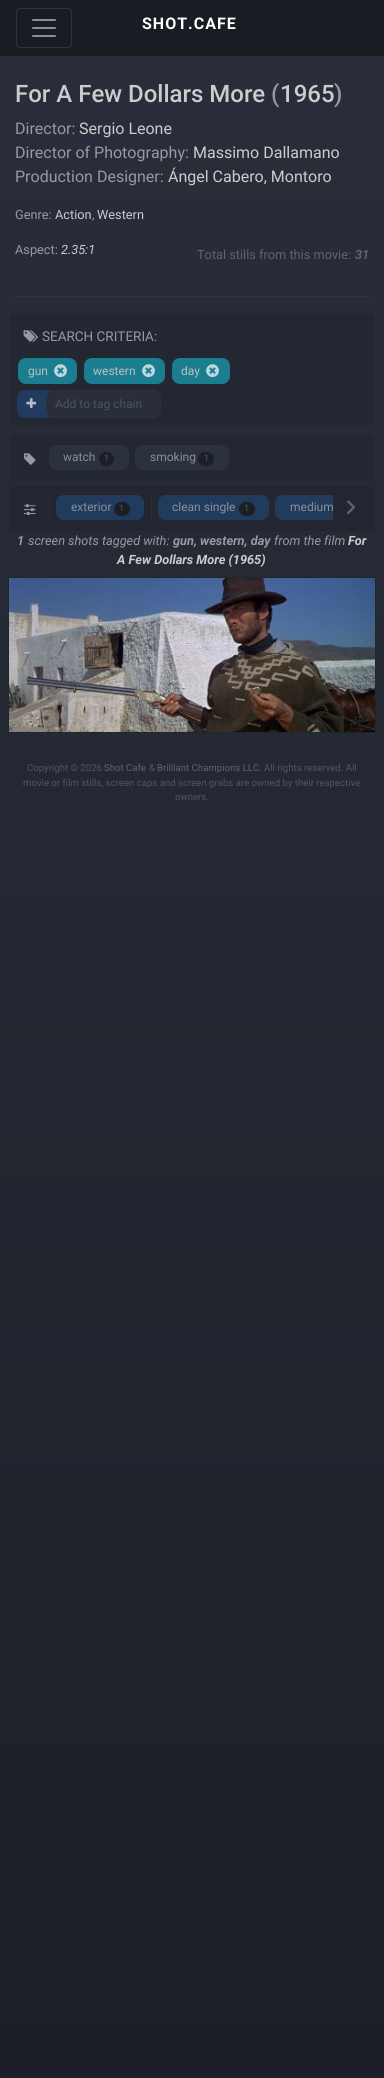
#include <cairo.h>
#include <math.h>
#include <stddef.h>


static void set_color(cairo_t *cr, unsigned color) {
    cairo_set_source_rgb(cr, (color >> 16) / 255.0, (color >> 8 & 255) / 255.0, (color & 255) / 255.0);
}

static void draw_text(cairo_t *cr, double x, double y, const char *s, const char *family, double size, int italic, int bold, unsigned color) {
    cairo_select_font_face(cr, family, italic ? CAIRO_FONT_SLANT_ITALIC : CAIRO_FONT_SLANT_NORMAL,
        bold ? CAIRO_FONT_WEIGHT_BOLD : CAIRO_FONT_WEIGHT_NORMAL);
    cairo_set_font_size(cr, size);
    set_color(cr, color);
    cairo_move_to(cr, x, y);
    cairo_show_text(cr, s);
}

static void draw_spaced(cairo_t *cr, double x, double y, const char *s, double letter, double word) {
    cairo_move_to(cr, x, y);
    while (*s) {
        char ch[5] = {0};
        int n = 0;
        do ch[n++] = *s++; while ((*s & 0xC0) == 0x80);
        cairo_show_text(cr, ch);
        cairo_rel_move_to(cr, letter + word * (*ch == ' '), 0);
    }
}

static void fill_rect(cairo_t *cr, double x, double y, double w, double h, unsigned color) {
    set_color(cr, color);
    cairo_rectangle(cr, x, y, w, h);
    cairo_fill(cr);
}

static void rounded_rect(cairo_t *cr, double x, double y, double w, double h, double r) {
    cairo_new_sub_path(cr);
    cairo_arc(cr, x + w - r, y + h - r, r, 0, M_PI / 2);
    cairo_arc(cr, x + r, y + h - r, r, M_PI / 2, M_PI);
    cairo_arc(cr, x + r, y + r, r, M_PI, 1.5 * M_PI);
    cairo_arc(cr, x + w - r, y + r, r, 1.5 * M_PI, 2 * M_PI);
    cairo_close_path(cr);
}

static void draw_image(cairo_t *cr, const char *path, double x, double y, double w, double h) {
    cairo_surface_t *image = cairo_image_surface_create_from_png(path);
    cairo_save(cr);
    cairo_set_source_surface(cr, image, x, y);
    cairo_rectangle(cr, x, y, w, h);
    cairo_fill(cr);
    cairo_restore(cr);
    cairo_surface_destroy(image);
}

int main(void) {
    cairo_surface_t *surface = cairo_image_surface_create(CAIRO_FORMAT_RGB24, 384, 2078);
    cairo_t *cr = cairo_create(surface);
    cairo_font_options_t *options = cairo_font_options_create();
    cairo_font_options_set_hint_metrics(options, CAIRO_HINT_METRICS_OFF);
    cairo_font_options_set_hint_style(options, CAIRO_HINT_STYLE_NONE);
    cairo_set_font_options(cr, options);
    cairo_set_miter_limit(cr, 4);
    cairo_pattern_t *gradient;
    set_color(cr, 0xFFFFFF);
    cairo_paint(cr);
    gradient = cairo_pattern_create_linear(192, 0, 192, 2078);
    cairo_pattern_add_color_stop_rgba(gradient, 0, 0.161, 0.18, 0.227, 1);
    cairo_pattern_add_color_stop_rgba(gradient, 1, 0.11, 0.122, 0.153, 1);
    cairo_set_source(cr, gradient);
    cairo_pattern_destroy(gradient);
    cairo_rectangle(cr, 0, 56, 384, 2022);
    cairo_fill(cr);
    fill_rect(cr, 0, 0, 384, 56, 0x1A1C24);
    rounded_rect(cr, 16.5, 8.5, 55, 39, 3.5);
    set_color(cr, 0x31333A);
    cairo_set_line_width(cr, 1);
    cairo_stroke(cr);
    draw_image(cr, "assets/img1.png", 32, 19, 24, 18);
    cairo_select_font_face(cr, "Roboto", CAIRO_FONT_SLANT_NORMAL, CAIRO_FONT_WEIGHT_BOLD);
    cairo_set_font_size(cr, 16);
    set_color(cr, 0xFFFFFF);
    draw_spaced(cr, 142, 29, "SHOT.CAFE", 1, 0);
    draw_text(cr, 15, 102, "For A Few Dollars More", "Roboto Medium", 24, 0, 0, 0xCCCCCC);
    draw_text(cr, 271, 102, "(", "Roboto Medium", 24, 0, 0, 0x959AA2);
    draw_text(cr, 280, 102, "1965", "Roboto Medium", 24, 0, 0, 0xCCCCCC);
    draw_text(cr, 334, 102, ")", "Roboto Medium", 24, 0, 0, 0x959AA2);
    draw_text(cr, 15, 134, "Director:", "Roboto", 16, 0, 0, 0x959AA2);
    draw_text(cr, 79, 134, "Sergio Leone", "Roboto", 16, 0, 0, 0xCCCCCC);
    draw_text(cr, 15, 158, "Director of Photography:", "Roboto", 16, 0, 0, 0x959AA2);
    draw_text(cr, 193, 158, "Massimo Dallamano", "Roboto", 16, 0, 0, 0xCCCCCC);
    draw_text(cr, 15, 182, "Production Designer:", "Roboto", 16, 0, 0, 0x959AA2);
    draw_text(cr, 168, 182, "Ángel Cabero, Montoro", "Roboto", 16, 0, 0, 0xCCCCCC);
    draw_text(cr, 15, 219, "Genre:", "Roboto", 12.75, 0, 0, 0x959AA2);
    draw_text(cr, 55, 219, "Action", "Roboto", 12.75, 0, 0, 0xCCCCCC);
    draw_text(cr, 92, 219, ",", "Roboto", 12.75, 0, 0, 0x959AA2);
    draw_text(cr, 97, 219, "Western", "Roboto", 12.75, 0, 0, 0xCCCCCC);
    draw_text(cr, 15, 254, "Aspect:", "Roboto", 12.75, 0, 0, 0x959AA2);
    draw_text(cr, 61, 254, "2.35:1", "Roboto", 12.75, 1, 0, 0xCCCCCC);
    draw_text(cr, 197, 259, "Total stills from this movie:", "Roboto", 12.75, 0, 0, 0x5E636D);
    draw_text(cr, 355, 259, "31", "Roboto", 12.75, 1, 1, 0x5E636D);
    fill_rect(cr, 15, 296, 354, 1, 0x313639);
    set_color(cr, 0x232731);
    rounded_rect(cr, 10, 313, 364, 113, 5);
    cairo_fill(cr);
    draw_image(cr, "assets/img2.png", 23, 330, 15, 12);
    draw_text(cr, 42, 341, "SEARCH CRITERIA:", "Roboto", 13.5, 0, 0, 0x959AA2);
    set_color(cr, 0x1B7D90);
    rounded_rect(cr, 18, 358, 59, 26, 8);
    cairo_fill(cr);
    draw_text(cr, 28, 375, "gun", "Roboto", 12, 0, 0, 0xBDBEC1);
    draw_image(cr, "assets/img3.png", 54, 364, 13, 14);
    set_color(cr, 0x1B7D90);
    rounded_rect(cr, 84, 358, 81, 26, 8);
    cairo_fill(cr);
    draw_text(cr, 93, 375, "western", "Roboto", 12, 0, 0, 0xBDBEC1);
    draw_image(cr, "assets/img3.png", 142, 364, 13, 14);
    set_color(cr, 0x1B7D90);
    rounded_rect(cr, 172, 358, 58, 26, 8);
    cairo_fill(cr);
    draw_text(cr, 181, 375, "day", "Roboto", 12, 0, 0, 0xBDBEC1);
    draw_image(cr, "assets/img3.png", 206, 364, 13, 14);
    set_color(cr, 0x213B5E);
    rounded_rect(cr, 17, 390, 39, 28, 8);
    cairo_fill(cr);
    draw_image(cr, "assets/img4.png", 26, 398, 11, 10);
    set_color(cr, 0x292E39);
    rounded_rect(cr, 46.5, 390.5, 114, 27, 7.5);
    cairo_fill_preserve(cr);
    set_color(cr, 0x2A2F3C);
    cairo_stroke(cr);
    draw_text(cr, 55, 408, "Add to tag chain", "Roboto", 12, 0, 0, 0x4A5365);
    set_color(cr, 0x232731);
    rounded_rect(cr, 10, 436, 364, 45, 5);
    cairo_fill(cr);
    draw_image(cr, "assets/img5.png", 24, 453, 12, 12);
    set_color(cr, 0x2B313E);
    rounded_rect(cr, 49, 445, 80, 25, 8);
    cairo_fill(cr);
    draw_text(cr, 63, 461, "watch", "Roboto", 12, 0, 0, 0x8A8D93);
    set_color(cr, 0x1C1F27);
    rounded_rect(cr, 99, 452, 15, 14, 7);
    cairo_fill(cr);
    draw_text(cr, 104, 461, "1", "Roboto", 9, 0, 0, 0x51545C);
    set_color(cr, 0x2B313E);
    rounded_rect(cr, 135, 445, 94, 25, 8);
    cairo_fill(cr);
    draw_text(cr, 150, 461, "smoking", "Roboto", 12, 0, 0, 0x8A8D93);
    set_color(cr, 0x1C1F27);
    rounded_rect(cr, 198, 452, 16, 14, 7);
    cairo_fill(cr);
    draw_text(cr, 204, 461, "1", "Roboto", 9, 0, 0, 0x51545C);
    set_color(cr, 0x232630);
    rounded_rect(cr, 10, 486, 364, 45, 5);
    cairo_fill(cr);
    draw_image(cr, "assets/img6.png", 24, 504, 12, 11);
    cairo_new_path(cr);
    cairo_move_to(cr, 49.5, 494);
    cairo_line_to(cr, 49.5, 520);
    set_color(cr, 0x32353F);
    cairo_set_dash(cr, (double[]){1, 1}, 2, 0);
    cairo_stroke(cr);
    set_color(cr, 0x213B5C);
    rounded_rect(cr, 56, 495, 88, 25, 8);
    cairo_fill(cr);
    draw_text(cr, 71, 511, "exterior", "Roboto", 12, 0, 0, 0x86909E);
    set_color(cr, 0x1C1E26);
    rounded_rect(cr, 114, 502, 16, 14, 7);
    cairo_fill(cr);
    draw_text(cr, 119, 511, "1", "Roboto", 9, 0, 0, 0x51545C);
    cairo_new_path(cr);
    cairo_move_to(cr, 151.5, 494);
    cairo_line_to(cr, 151.5, 520);
    set_color(cr, 0x32353F);
    cairo_stroke(cr);
    set_color(cr, 0x213B5C);
    rounded_rect(cr, 158, 495, 111, 25, 8);
    cairo_fill(cr);
    draw_text(cr, 172, 511, "clean single", "Roboto", 12, 0, 0, 0x86909E);
    set_color(cr, 0x1C1E26);
    rounded_rect(cr, 239, 502, 16, 14, 7);
    cairo_fill(cr);
    draw_text(cr, 244, 511, "1", "Roboto", 9, 0, 0, 0x51545C);
    set_color(cr, 0x213B5C);
    cairo_new_path(cr);
    cairo_move_to(cr, 283, 495);
    cairo_line_to(cr, 333, 495);
    cairo_line_to(cr, 333, 520);
    cairo_line_to(cr, 283, 520);
    cairo_curve_to(cr, 278.5, 520, 275, 516.5, 275, 512);
    cairo_line_to(cr, 275, 503);
    cairo_curve_to(cr, 275, 498.5, 278.5, 495, 283, 495);
    cairo_close_path(cr);
    cairo_fill(cr);
    draw_text(cr, 290, 511, "medium", "Roboto", 12, 0, 0, 0x86909E);
    draw_image(cr, "assets/img7.png", 347, 500, 8, 15);
    draw_text(cr, 17, 545, "1", "Roboto", 12.75, 1, 1, 0x959AA2);
    draw_text(cr, 28, 545, "screen shots tagged with:", "Roboto", 12.75, 1, 0, 0x959AA2);
    draw_text(cr, 173, 545, "gun, western, day", "Roboto", 12.75, 1, 1, 0x959AA2);
    draw_text(cr, 274, 545, "from the film", "Roboto", 12.75, 1, 0, 0x959AA2);
    draw_text(cr, 348, 545, "For", "Roboto", 12.75, 1, 1, 0xCCCCCC);
    draw_text(cr, 117, 564, "A Few Dollars More (1965)", "Roboto", 12.75, 1, 1, 0xCCCCCC);
    cairo_rectangle(cr, 8.5, 577.5, 367, 155);
    set_color(cr, 0x21252F);
    cairo_set_dash(cr, NULL, 0, 0);
    cairo_stroke(cr);
    draw_image(cr, "assets/img8.png", 9, 578, 366, 154);
    draw_text(cr, 27, 771, "Copyright © 2026", "Roboto", 9.6, 0, 0, 0x51545C);
    draw_text(cr, 104, 771, "Shot Cafe", "Roboto", 9.6, 0, 0, 0x5E636D);
    draw_text(cr, 149, 771, "&", "Roboto", 9.6, 0, 0, 0x51545C);
    draw_text(cr, 157, 771, "Brilliant Champions LLC", "Roboto", 9.6, 0, 0, 0x5E636D);
    draw_text(cr, 259, 771, ". All rights reserved. All", "Roboto", 9.6, 0, 0, 0x51545C);
    draw_text(cr, 23, 786, "movie or film stills, screen caps and screen grabs are owned by their respective", "Roboto", 9.6, 0, 0, 0x51545C);
    draw_text(cr, 175, 800, "owners.", "Roboto", 9.6, 0, 0, 0x51545C);
    cairo_surface_write_to_png(surface, "output.png");
    cairo_font_options_destroy(options);
    cairo_destroy(cr);
    cairo_surface_destroy(surface);
    return 0;
}
